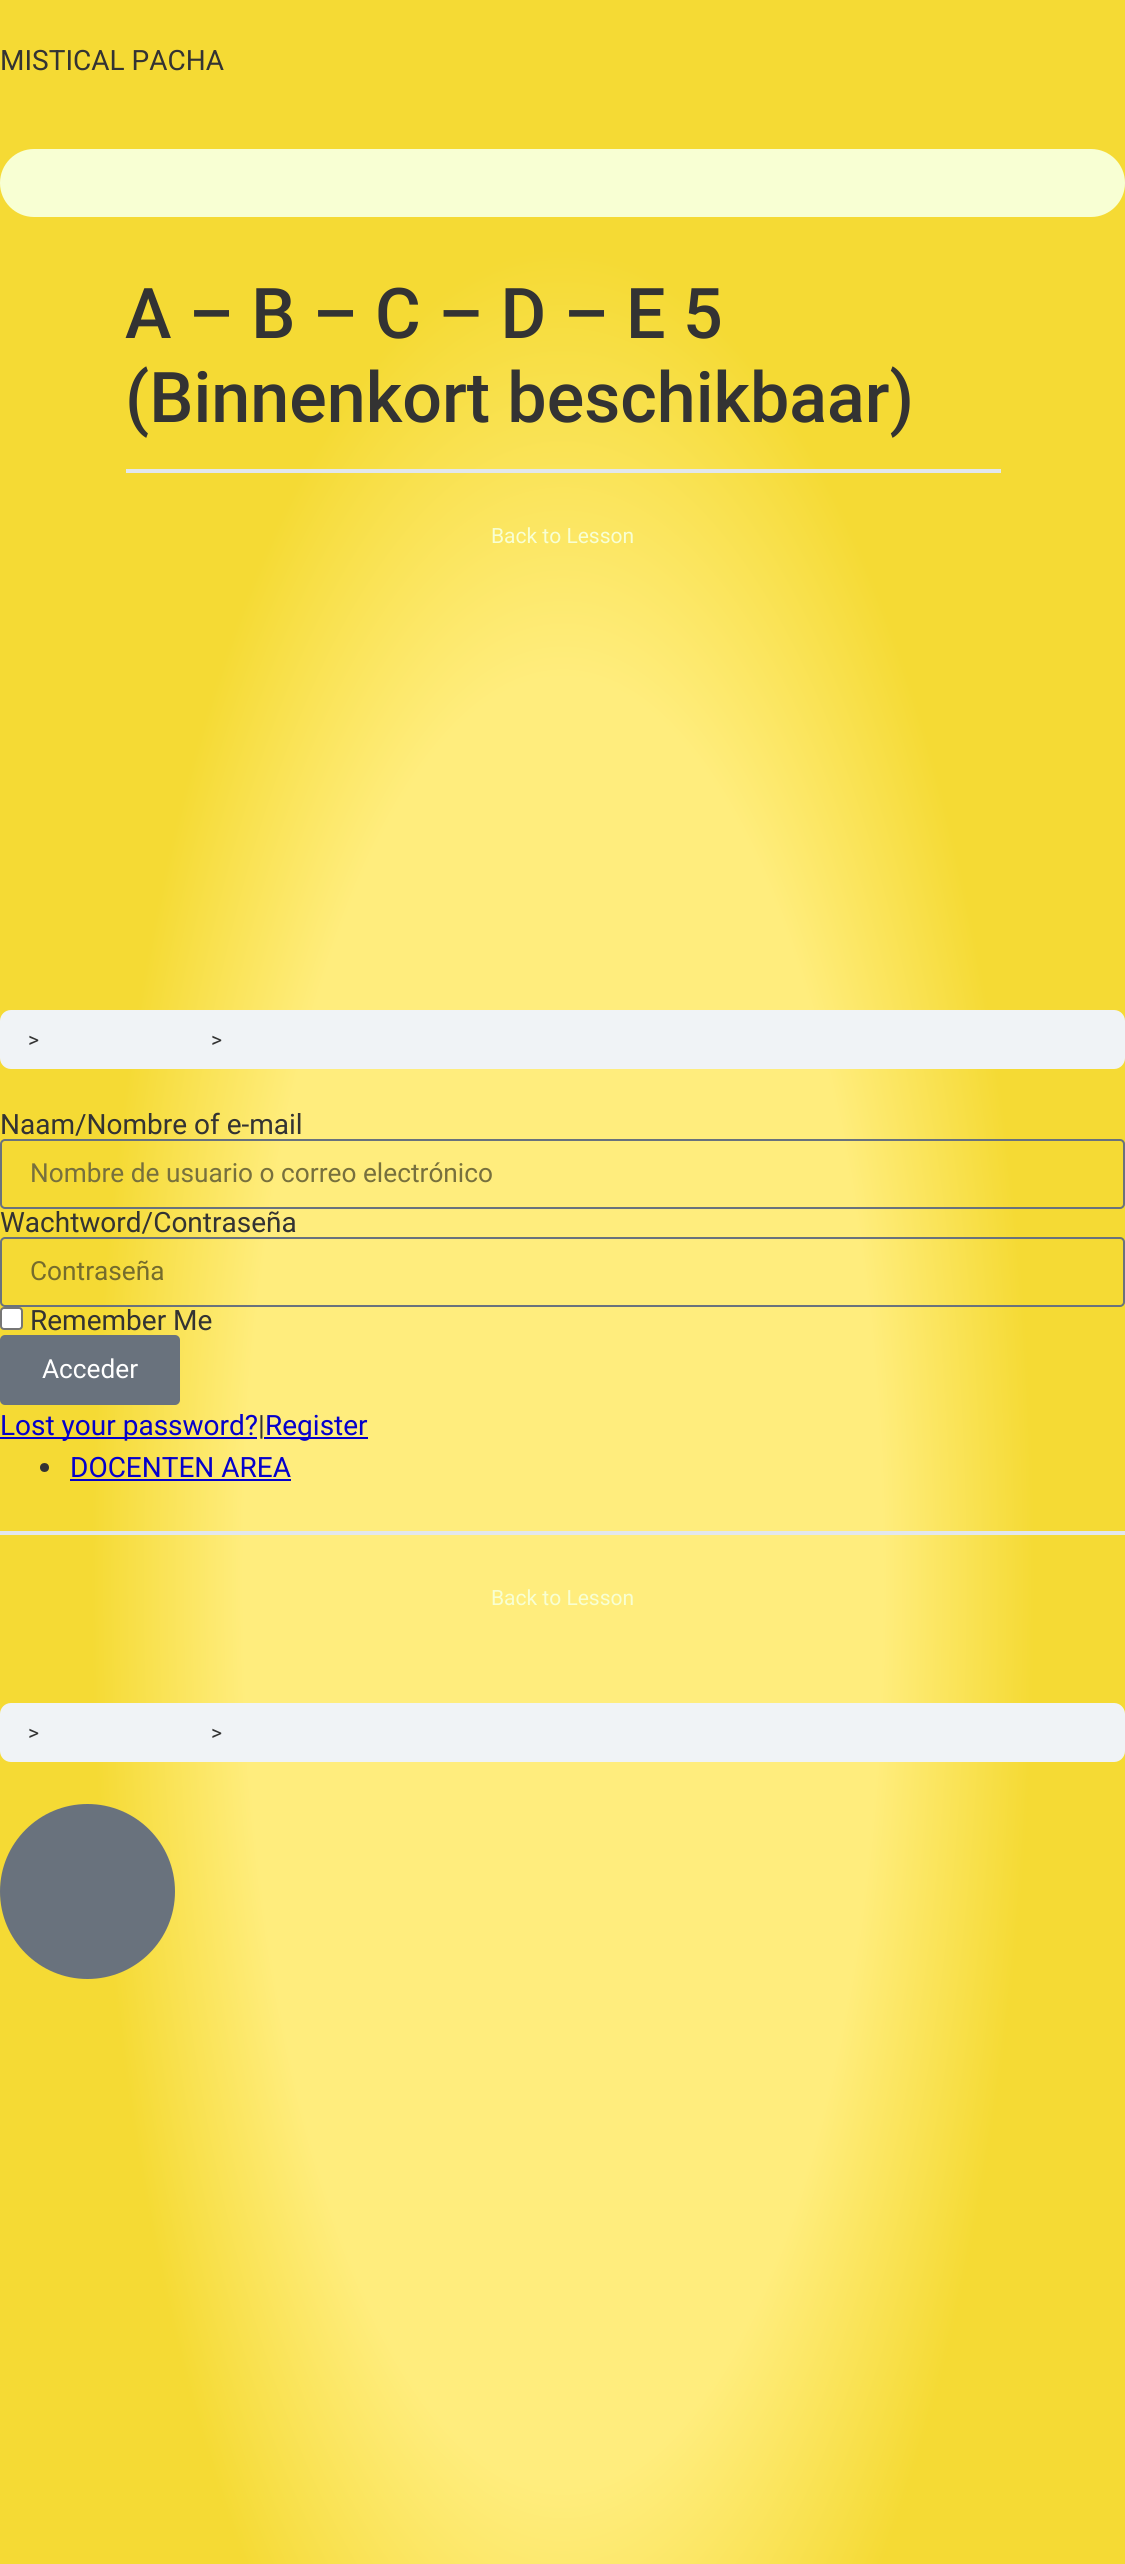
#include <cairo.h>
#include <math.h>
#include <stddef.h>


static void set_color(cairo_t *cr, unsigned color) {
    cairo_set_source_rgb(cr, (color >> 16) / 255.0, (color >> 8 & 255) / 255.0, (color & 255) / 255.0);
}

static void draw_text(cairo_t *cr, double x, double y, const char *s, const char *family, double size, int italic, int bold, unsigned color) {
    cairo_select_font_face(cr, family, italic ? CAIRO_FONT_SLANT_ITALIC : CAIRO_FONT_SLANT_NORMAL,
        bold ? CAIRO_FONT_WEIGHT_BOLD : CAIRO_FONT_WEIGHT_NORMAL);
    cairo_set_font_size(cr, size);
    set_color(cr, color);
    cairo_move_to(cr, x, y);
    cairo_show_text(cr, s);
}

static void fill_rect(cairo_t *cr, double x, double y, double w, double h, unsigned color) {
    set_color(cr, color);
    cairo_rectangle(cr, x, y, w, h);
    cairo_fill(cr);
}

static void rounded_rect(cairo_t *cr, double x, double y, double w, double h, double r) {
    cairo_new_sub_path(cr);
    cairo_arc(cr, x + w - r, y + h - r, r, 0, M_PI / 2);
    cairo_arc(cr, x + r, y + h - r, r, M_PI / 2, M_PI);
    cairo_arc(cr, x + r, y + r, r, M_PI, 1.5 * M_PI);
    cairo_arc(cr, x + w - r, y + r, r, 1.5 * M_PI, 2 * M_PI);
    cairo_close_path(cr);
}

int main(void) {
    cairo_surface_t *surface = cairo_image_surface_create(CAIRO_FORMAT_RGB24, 1125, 2564);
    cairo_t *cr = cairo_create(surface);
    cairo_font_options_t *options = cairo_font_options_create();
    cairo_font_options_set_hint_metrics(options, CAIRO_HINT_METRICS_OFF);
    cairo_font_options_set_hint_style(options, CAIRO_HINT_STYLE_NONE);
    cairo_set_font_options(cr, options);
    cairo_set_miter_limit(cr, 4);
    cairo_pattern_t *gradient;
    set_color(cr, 0xFFFFFF);
    cairo_paint(cr);
    gradient = cairo_pattern_create_radial(0, 0, 0, 0, 0, 1);
    cairo_pattern_set_matrix(gradient, &(cairo_matrix_t){1.0 / 796, 0, 0, 1.0 / 2235, -1.0 * 563 / 796, -1.0 * 1579 / 2235});
    cairo_pattern_add_color_stop_rgba(gradient, 0.4, 1, 0.929, 0.49, 1);
    cairo_pattern_add_color_stop_rgba(gradient, 0.59, 0.961, 0.855, 0.204, 1);
    cairo_set_source(cr, gradient);
    cairo_pattern_destroy(gradient);
    cairo_rectangle(cr, 0, 0, 1125, 2564);
    cairo_fill(cr);
    draw_text(cr, 0, 70, "MISTICAL PACHA", "Roboto", 28, 0, 0, 0x333333);
    set_color(cr, 0xF8FFD3);
    rounded_rect(cr, 0, 149, 1125, 68, 34);
    cairo_fill(cr);
    draw_text(cr, 125, 338, "A – B – C – D – E 5", "Roboto Medium", 70, 0, 0, 0x333333);
    draw_text(cr, 125, 422, "(Binnenkort beschikbaar)", "Roboto Medium", 70, 0, 0, 0x333333);
    fill_rect(cr, 126, 469, 875, 4, 0xE2E7ED);
    draw_text(cr, 491, 543, "Back to Lesson", "Roboto", 21, 0, 0, 0xF8FFD3);
    set_color(cr, 0xF0F3F6);
    rounded_rect(cr, 0, 1010, 1125, 59, 11);
    cairo_fill(cr);
    draw_text(cr, 28, 1047, ">", "Roboto", 21, 0, 0, 0x333333);
    draw_text(cr, 211, 1047, ">", "Roboto", 21, 0, 0, 0x333333);
    draw_text(cr, 0, 1134, "Naam/Nombre of e-mail", "Roboto", 28, 0, 0, 0x333333);
    rounded_rect(cr, 1, 1140, 1123, 68, 4);
    set_color(cr, 0x69727D);
    cairo_stroke(cr);
    draw_text(cr, 30, 1182, "Nombre de usuario o correo electrónico", "Roboto", 26.25, 0, 0, 0x77703D);
    draw_text(cr, 0, 1232, "Wachtword/Contraseña", "Roboto", 28, 0, 0, 0x333333);
    rounded_rect(cr, 1, 1238, 1123, 68, 4);
    set_color(cr, 0x69727D);
    cairo_stroke(cr);
    draw_text(cr, 30, 1280, "Contraseña", "Roboto", 26.25, 0, 0, 0x756C2D);
    set_color(cr, 0xFFFFFF);
    rounded_rect(cr, 1, 1308, 21, 21, 3);
    cairo_fill_preserve(cr);
    set_color(cr, 0x767676);
    cairo_stroke(cr);
    draw_text(cr, 30, 1330, "Remember Me", "Roboto", 28, 0, 0, 0x333333);
    set_color(cr, 0x69727D);
    rounded_rect(cr, 0, 1335, 180, 70, 5);
    cairo_fill(cr);
    draw_text(cr, 42, 1378, "Acceder", "Roboto", 26.25, 0, 0, 0xFFFFFF);
    fill_rect(cr, 0, 1437, 257, 2, 0x0500CB);
    draw_text(cr, 0, 1435, "Lost your password?", "Roboto", 28, 0, 0, 0x0500CB);
    draw_text(cr, 258, 1435, "|", "Roboto", 28, 0, 0, 0x333333);
    fill_rect(cr, 264, 1437, 104, 2, 0x0500CB);
    draw_text(cr, 265, 1435, "Register", "Roboto", 28, 0, 0, 0x0500CB);
    set_color(cr, 0x333333);
    cairo_new_path(cr);
    cairo_arc(cr, 44.5, 1467.5, 4.5, 0, 2 * M_PI);
    cairo_fill(cr);
    draw_text(cr, 70, 1477, "DOCENTEN AREA", "Roboto", 28, 0, 0, 0x0500CB);
    fill_rect(cr, 70, 1479, 221, 2, 0x0500CB);
    fill_rect(cr, 0, 1531, 1125, 4, 0xE2E7ED);
    draw_text(cr, 491, 1605, "Back to Lesson", "Roboto", 21, 0, 0, 0xF8FFD3);
    set_color(cr, 0xF0F3F6);
    rounded_rect(cr, 0, 1703, 1125, 59, 11);
    cairo_fill(cr);
    draw_text(cr, 28, 1740, ">", "Roboto", 21, 0, 0, 0x333333);
    draw_text(cr, 211, 1740, ">", "Roboto", 21, 0, 0, 0x333333);
    set_color(cr, 0x69727D);
    cairo_new_path(cr);
    cairo_arc(cr, 87.5, 1891.5, 87.5, 0, 2 * M_PI);
    cairo_fill(cr);
    cairo_surface_write_to_png(surface, "output.png");
    cairo_font_options_destroy(options);
    cairo_destroy(cr);
    cairo_surface_destroy(surface);
    return 0;
}
